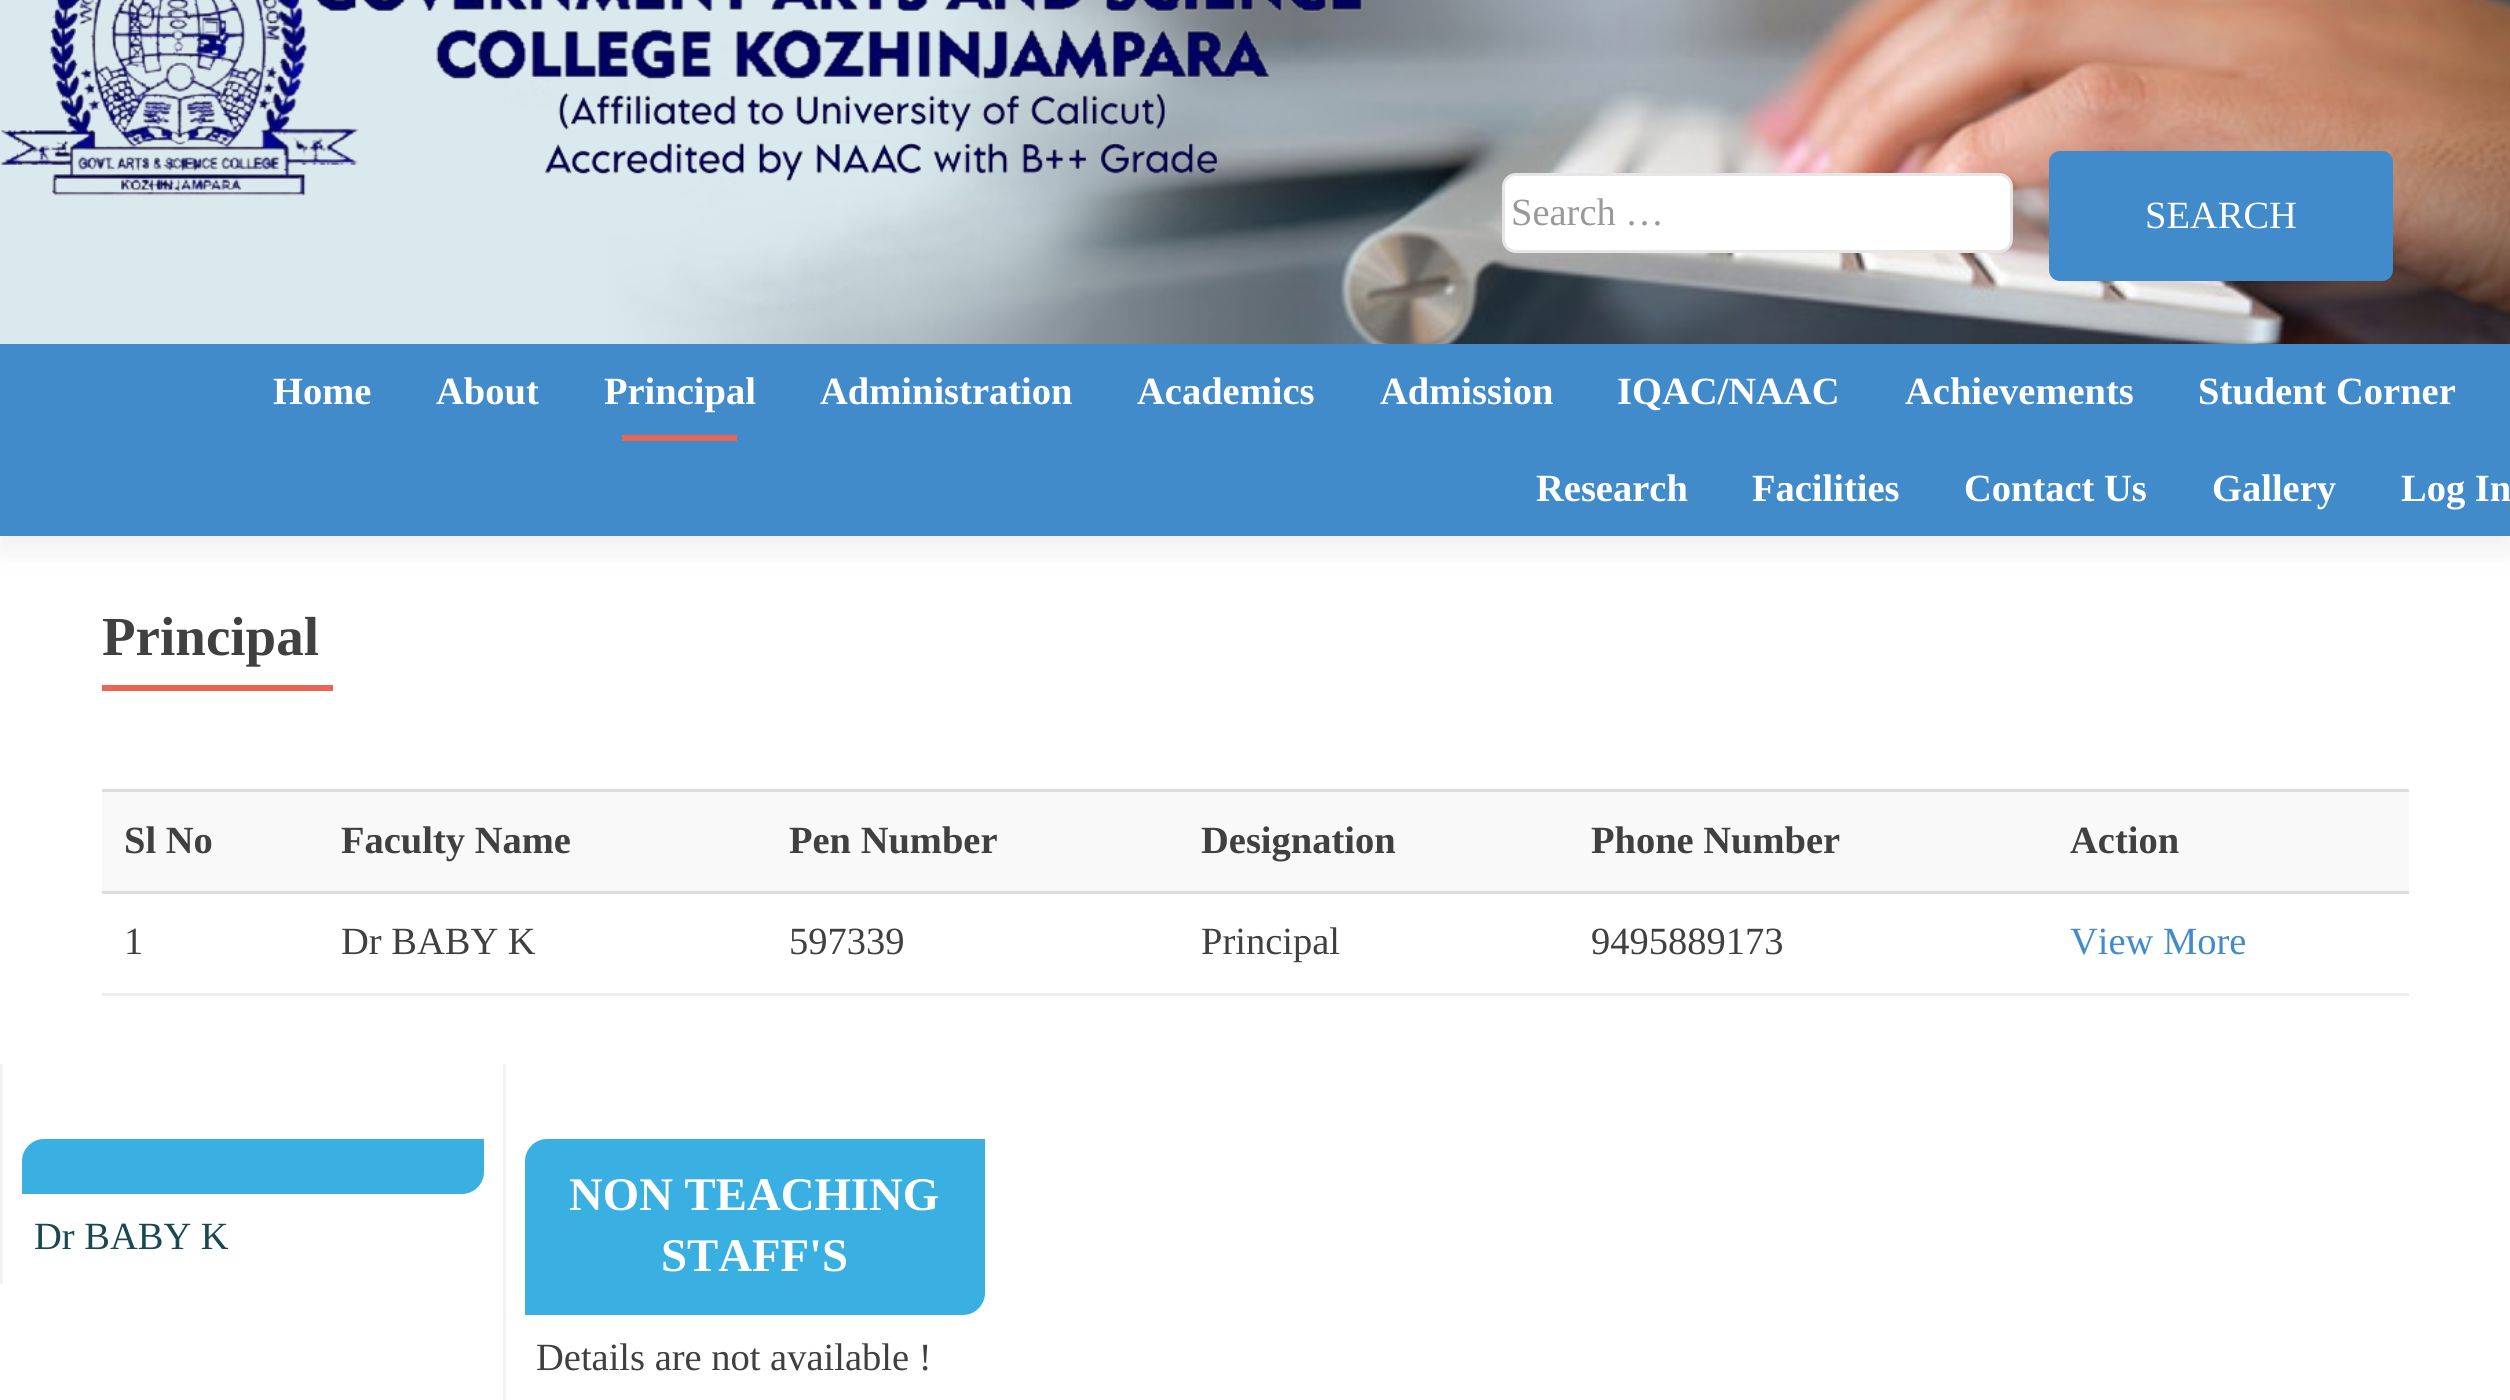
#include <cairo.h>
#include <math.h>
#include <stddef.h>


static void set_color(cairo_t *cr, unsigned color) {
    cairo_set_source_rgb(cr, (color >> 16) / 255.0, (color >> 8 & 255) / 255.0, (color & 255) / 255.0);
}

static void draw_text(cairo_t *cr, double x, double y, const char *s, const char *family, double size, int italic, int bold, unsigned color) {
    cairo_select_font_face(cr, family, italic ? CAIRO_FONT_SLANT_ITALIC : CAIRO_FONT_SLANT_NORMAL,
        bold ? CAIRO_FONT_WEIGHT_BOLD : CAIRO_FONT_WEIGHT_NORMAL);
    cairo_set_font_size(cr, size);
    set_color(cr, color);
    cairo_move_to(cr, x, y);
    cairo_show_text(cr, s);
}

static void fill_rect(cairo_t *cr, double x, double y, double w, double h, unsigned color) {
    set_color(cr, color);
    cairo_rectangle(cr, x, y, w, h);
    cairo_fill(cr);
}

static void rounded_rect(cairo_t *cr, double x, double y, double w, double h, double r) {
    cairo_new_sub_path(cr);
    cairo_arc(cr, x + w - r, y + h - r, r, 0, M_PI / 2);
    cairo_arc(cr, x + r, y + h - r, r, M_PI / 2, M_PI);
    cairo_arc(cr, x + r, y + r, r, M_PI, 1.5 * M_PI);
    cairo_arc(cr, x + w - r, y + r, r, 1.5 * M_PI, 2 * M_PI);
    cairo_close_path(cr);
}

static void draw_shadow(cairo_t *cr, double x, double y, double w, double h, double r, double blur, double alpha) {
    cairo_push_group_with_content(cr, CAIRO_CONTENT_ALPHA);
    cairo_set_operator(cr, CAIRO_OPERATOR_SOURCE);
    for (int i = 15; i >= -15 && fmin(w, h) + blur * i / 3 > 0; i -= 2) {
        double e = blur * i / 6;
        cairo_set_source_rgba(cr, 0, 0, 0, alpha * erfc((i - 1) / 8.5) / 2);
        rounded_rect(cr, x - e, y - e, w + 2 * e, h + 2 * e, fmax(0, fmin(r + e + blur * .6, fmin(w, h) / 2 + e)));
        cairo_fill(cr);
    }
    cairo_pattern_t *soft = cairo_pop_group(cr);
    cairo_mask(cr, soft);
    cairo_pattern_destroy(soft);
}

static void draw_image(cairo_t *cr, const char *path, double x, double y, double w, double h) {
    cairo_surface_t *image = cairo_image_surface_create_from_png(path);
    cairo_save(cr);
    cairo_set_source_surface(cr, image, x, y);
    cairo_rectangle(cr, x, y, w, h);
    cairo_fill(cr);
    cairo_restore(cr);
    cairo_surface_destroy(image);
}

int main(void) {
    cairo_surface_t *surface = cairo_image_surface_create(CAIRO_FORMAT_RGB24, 2510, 1400);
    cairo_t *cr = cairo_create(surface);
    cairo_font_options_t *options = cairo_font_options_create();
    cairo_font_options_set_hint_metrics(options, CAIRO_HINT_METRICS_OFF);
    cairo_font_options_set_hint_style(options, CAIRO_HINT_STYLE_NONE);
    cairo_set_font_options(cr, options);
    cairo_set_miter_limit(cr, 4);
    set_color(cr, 0xFFFFFF);
    cairo_paint(cr);
    set_color(cr, 0x323232);
    draw_shadow(cr, 0, -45, 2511, 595, 0, 15, 0.08);
    fill_rect(cr, 0, 0, 492, 344, 0xDAE9EE);
    draw_image(cr, "assets/img1.png", 492, 0, 2018, 344);
    draw_image(cr, "assets/img2.png", 0, 0, 1363, 196);
    set_color(cr, 0xFFFFFF);
    rounded_rect(cr, 1502, 173, 511, 80, 14);
    cairo_fill(cr);
    rounded_rect(cr, 1503.5, 174.5, 508, 77, 12.5);
    cairo_set_source_rgba(cr, 0, 0, 0, 0.1);
    cairo_set_line_width(cr, 3);
    cairo_stroke(cr);
    draw_text(cr, 1511, 225, "Search …", "Liberation Serif", 38.5, 0, 0, 0x999999);
    set_color(cr, 0x428BCA);
    rounded_rect(cr, 2049, 151, 344, 130, 11);
    cairo_fill(cr);
    draw_text(cr, 2145, 228, "SEARCH", "Liberation Serif", 38.5, 0, 0, 0xFFFFFF);
    fill_rect(cr, 0, 344, 2510, 192, 0x428BCA);
    draw_text(cr, 273, 404, "Home", "Liberation Serif", 38.5, 0, 1, 0xFFFFFF);
    draw_text(cr, 436, 404, "About", "Liberation Serif", 38.5, 0, 1, 0xFFFFFF);
    draw_text(cr, 604, 404, "Principal", "Liberation Serif", 38.5, 0, 1, 0xFFFFFF);
    fill_rect(cr, 622, 435, 115, 6, 0xE96656);
    draw_text(cr, 820, 404, "Administration", "Liberation Serif", 38.5, 0, 1, 0xFFFFFF);
    draw_text(cr, 1137, 404, "Academics", "Liberation Serif", 38.5, 0, 1, 0xFFFFFF);
    draw_text(cr, 1380, 404, "Admission", "Liberation Serif", 38.5, 0, 1, 0xFFFFFF);
    draw_text(cr, 1617, 404, "IQAC/NAAC", "Liberation Serif", 38.5, 0, 1, 0xFFFFFF);
    draw_text(cr, 1905, 404, "Achievements", "Liberation Serif", 38.5, 0, 1, 0xFFFFFF);
    draw_text(cr, 2198, 404, "Student Corner", "Liberation Serif", 38.5, 0, 1, 0xFFFFFF);
    draw_text(cr, 1536, 501, "Research", "Liberation Serif", 38.5, 0, 1, 0xFFFFFF);
    draw_text(cr, 1752, 501, "Facilities", "Liberation Serif", 38.5, 0, 1, 0xFFFFFF);
    draw_text(cr, 1964, 501, "Contact Us", "Liberation Serif", 38.5, 0, 1, 0xFFFFFF);
    draw_text(cr, 2212, 501, "Gallery", "Liberation Serif", 38.5, 0, 1, 0xFFFFFF);
    draw_text(cr, 2401, 501, "Log In", "Liberation Serif", 38.5, 0, 1, 0xFFFFFF);
    draw_text(cr, 102, 655, "Principal", "Liberation Serif", 55, 0, 1, 0x404040);
    fill_rect(cr, 102, 685, 231, 6, 0xE96656);
    fill_rect(cr, 102, 993, 2307, 3, 0xEDEDED);
    fill_rect(cr, 102, 792, 2307, 99, 0xF9F9F9);
    draw_text(cr, 124, 853, "Sl No", "Liberation Serif", 38.5, 0, 1, 0x404040);
    draw_text(cr, 341, 853, "Faculty Name", "Liberation Serif", 38.5, 0, 1, 0x404040);
    draw_text(cr, 789, 853, "Pen Number", "Liberation Serif", 38.5, 0, 1, 0x404040);
    draw_text(cr, 1201, 853, "Designation", "Liberation Serif", 38.5, 0, 1, 0x404040);
    draw_text(cr, 1591, 853, "Phone Number", "Liberation Serif", 38.5, 0, 1, 0x404040);
    fill_rect(cr, 102, 789, 2307, 3, 0xDDDDDD);
    draw_text(cr, 2070, 853, "Action", "Liberation Serif", 38.5, 0, 1, 0x404040);
    draw_text(cr, 124, 954, "1", "Liberation Serif", 38.5, 0, 0, 0x404040);
    draw_text(cr, 341, 954, "Dr BABY K", "Liberation Serif", 38.5, 0, 0, 0x404040);
    draw_text(cr, 789, 954, "597339", "Liberation Serif", 38.5, 0, 0, 0x404040);
    draw_text(cr, 1201, 954, "Principal", "Liberation Serif", 38.5, 0, 0, 0x404040);
    draw_text(cr, 1591, 954, "9495889173", "Liberation Serif", 38.5, 0, 0, 0x404040);
    fill_rect(cr, 102, 891, 2307, 3, 0xDDDDDD);
    draw_text(cr, 2070, 954, "View More", "Liberation Serif", 38.5, 0, 0, 0x428BCA);
    fill_rect(cr, 0, 1064, 3, 220, 0xF2F2F2);
    set_color(cr, 0x3AB0E2);
    cairo_new_path(cr);
    cairo_move_to(cr, 44, 1139);
    cairo_line_to(cr, 484, 1139);
    cairo_line_to(cr, 484, 1172);
    cairo_curve_to(cr, 484, 1184, 474, 1194, 462, 1194);
    cairo_line_to(cr, 22, 1194);
    cairo_line_to(cr, 22, 1161);
    cairo_curve_to(cr, 22, 1149, 32, 1139, 44, 1139);
    cairo_close_path(cr);
    cairo_fill(cr);
    draw_text(cr, 34, 1249, "Dr BABY K", "Liberation Serif", 38.5, 0, 0, 0x184852);
    fill_rect(cr, 503, 1064, 3, 336, 0xF2F2F2);
    set_color(cr, 0x3AB0E2);
    cairo_new_path(cr);
    cairo_move_to(cr, 547, 1139);
    cairo_line_to(cr, 985, 1139);
    cairo_line_to(cr, 985, 1293);
    cairo_curve_to(cr, 985, 1305, 975, 1315, 963, 1315);
    cairo_line_to(cr, 525, 1315);
    cairo_line_to(cr, 525, 1161);
    cairo_curve_to(cr, 525, 1149, 535, 1139, 547, 1139);
    cairo_close_path(cr);
    cairo_fill(cr);
    draw_text(cr, 569, 1210, "NON TEACHING", "Liberation Serif", 46.75, 0, 1, 0xFFFFFF);
    draw_text(cr, 661, 1271, "STAFF'S", "Liberation Serif", 46.75, 0, 1, 0xFFFFFF);
    draw_text(cr, 536, 1370, "Details are not available !", "Liberation Serif", 38.5, 0, 0, 0x404040);
    cairo_surface_write_to_png(surface, "output.png");
    cairo_font_options_destroy(options);
    cairo_destroy(cr);
    cairo_surface_destroy(surface);
    return 0;
}
